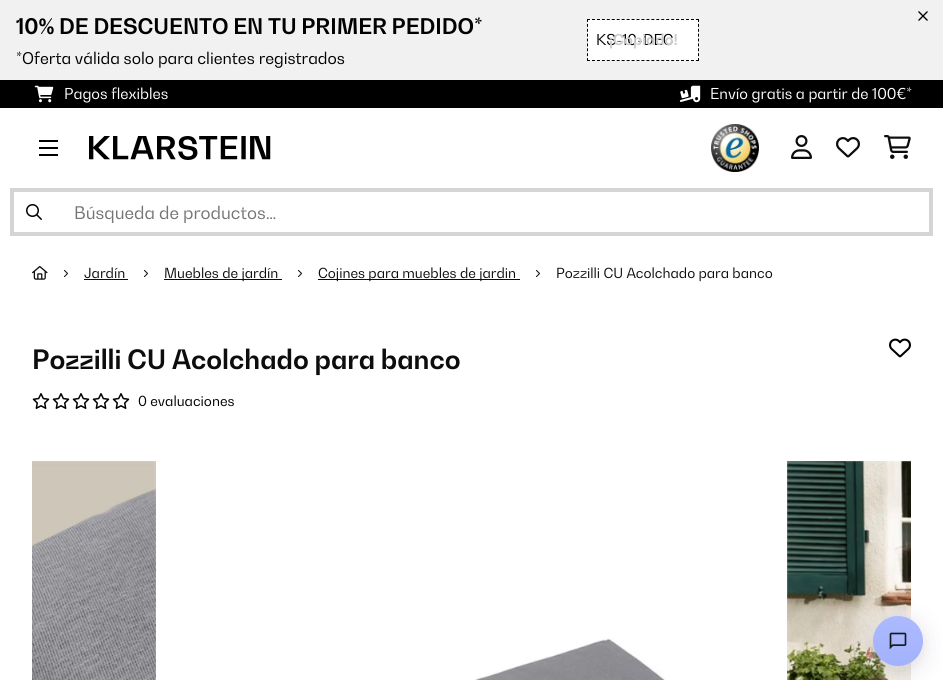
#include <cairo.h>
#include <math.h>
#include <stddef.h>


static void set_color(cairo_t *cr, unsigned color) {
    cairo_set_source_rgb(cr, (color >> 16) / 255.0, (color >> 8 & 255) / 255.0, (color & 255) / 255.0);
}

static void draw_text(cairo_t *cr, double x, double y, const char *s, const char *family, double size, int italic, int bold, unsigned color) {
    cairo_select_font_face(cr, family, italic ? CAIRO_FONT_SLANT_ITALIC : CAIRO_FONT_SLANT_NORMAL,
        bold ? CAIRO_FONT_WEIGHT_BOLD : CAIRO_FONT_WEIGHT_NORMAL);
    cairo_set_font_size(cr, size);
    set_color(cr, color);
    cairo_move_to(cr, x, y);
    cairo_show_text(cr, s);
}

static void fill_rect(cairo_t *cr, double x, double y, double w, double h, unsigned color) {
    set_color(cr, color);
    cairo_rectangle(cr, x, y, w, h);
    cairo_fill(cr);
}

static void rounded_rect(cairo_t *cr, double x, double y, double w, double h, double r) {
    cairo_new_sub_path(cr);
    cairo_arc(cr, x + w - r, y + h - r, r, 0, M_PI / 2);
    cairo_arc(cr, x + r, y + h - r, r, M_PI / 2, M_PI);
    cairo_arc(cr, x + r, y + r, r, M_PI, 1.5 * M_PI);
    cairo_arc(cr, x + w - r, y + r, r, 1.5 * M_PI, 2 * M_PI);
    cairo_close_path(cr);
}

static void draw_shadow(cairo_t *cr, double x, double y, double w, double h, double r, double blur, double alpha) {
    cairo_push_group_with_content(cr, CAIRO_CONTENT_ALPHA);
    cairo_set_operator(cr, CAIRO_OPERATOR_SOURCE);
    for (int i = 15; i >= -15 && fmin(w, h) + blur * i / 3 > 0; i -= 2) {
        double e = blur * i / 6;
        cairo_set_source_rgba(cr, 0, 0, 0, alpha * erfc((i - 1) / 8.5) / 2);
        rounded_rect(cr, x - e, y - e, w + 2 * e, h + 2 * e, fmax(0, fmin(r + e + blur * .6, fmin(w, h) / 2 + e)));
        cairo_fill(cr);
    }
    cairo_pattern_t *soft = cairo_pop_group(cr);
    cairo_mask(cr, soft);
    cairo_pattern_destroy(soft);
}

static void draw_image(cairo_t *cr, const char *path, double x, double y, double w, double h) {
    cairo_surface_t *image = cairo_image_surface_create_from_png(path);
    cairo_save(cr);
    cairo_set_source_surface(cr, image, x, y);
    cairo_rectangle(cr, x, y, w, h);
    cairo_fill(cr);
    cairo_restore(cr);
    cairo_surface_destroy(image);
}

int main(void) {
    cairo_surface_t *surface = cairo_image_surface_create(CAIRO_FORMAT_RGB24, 943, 680);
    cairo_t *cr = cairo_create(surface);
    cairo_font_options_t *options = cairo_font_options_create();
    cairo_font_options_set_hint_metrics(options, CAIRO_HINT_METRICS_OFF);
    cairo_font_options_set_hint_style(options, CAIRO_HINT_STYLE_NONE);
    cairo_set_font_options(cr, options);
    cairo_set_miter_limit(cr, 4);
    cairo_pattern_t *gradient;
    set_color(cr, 0xFFFFFF);
    cairo_paint(cr);
    fill_rect(cr, 0, 0, 943, 80, 0xF1F1F1);
    draw_image(cr, "assets/img1.png", 918, 11, 10, 10);
    draw_text(cr, 16, 34, "10% DE DESCUENTO EN TU PRIMER PEDIDO*", "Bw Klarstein", 21.4, 0, 1, 0x000000);
    draw_text(cr, 16, 64, "*Oferta válida solo para clientes registrados", "Bw Klarstein", 16, 0, 0, 0x000000);
    fill_rect(cr, 587, 19, 112, 42, 0xFFFFFF);
    cairo_new_path(cr);
    cairo_move_to(cr, 587, 19.5);
    cairo_line_to(cr, 699, 19.5);
    set_color(cr, 0x000000);
    cairo_set_line_width(cr, 1);
    cairo_set_dash(cr, (double[]){3, 1.95}, 2, 0);
    cairo_stroke(cr);
    cairo_new_path(cr);
    cairo_move_to(cr, 698.5, 19);
    cairo_line_to(cr, 698.5, 61);
    cairo_set_dash(cr, (double[]){3, 1.88}, 2, 0);
    cairo_stroke(cr);
    cairo_new_path(cr);
    cairo_move_to(cr, 587, 60.5);
    cairo_line_to(cr, 699, 60.5);
    cairo_set_dash(cr, (double[]){3, 1.95}, 2, 0);
    cairo_stroke(cr);
    cairo_new_path(cr);
    cairo_move_to(cr, 587.5, 19);
    cairo_line_to(cr, 587.5, 61);
    cairo_set_dash(cr, (double[]){3, 1.88}, 2, 0);
    cairo_stroke(cr);
    draw_text(cr, 596, 45, "KS-10-DEC", "Bw Klarstein", 14.9, 0, 0, 0x000000);
    draw_text(cr, 609, 45, "¡Copiado!", "Bw Klarstein", 14.9, 0, 1, 0xCCCCCC);
    fill_rect(cr, 0, 80, 943, 28, 0x000000);
    draw_image(cr, "assets/img2.png", 34, 85, 20, 18);
    draw_text(cr, 64, 99, "Pagos flexibles", "Bw Klarstein", 14.9, 0, 0, 0xFFFFFF);
    draw_image(cr, "assets/img3.png", 679, 85, 22, 18);
    draw_text(cr, 710, 99, "Envío gratis a partir de 100€*", "Bw Klarstein", 14.9, 0, 0, 0xFFFFFF);
    fill_rect(cr, 39, 140, 19, 2, 0x000000);
    fill_rect(cr, 39, 147, 19, 2, 0x000000);
    fill_rect(cr, 39, 154, 19, 2, 0x000000);
    draw_image(cr, "assets/img4.png", 89, 136, 182, 24);
    draw_image(cr, "assets/img5.png", 711, 124, 48, 48);
    draw_image(cr, "assets/img6.png", 791, 135, 21, 24);
    draw_image(cr, "assets/img7.png", 836, 137, 24, 21);
    draw_image(cr, "assets/img8.png", 884, 135, 27, 24);
    cairo_rectangle(cr, 12, 190, 919, 44);
    set_color(cr, 0xD5D5D5);
    cairo_set_line_width(cr, 4);
    cairo_set_dash(cr, NULL, 0, 0);
    cairo_stroke(cr);
    draw_image(cr, "assets/img9.png", 26, 204, 16, 16);
    draw_text(cr, 74, 219, "Búsqueda de productos…", "Bw Klarstein", 17.25, 0, 0, 0x757575);
    draw_image(cr, "assets/img10.png", 32, 265, 16, 15);
    draw_image(cr, "assets/img11.png", 64, 269, 4, 9);
    draw_text(cr, 84, 278, "Jardín", "Bw Klarstein", 13.8, 0, 0, 0x0D0D0D);
    fill_rect(cr, 84, 279, 44, 1, 0x0D0D0D);
    draw_image(cr, "assets/img11.png", 144, 269, 4, 9);
    fill_rect(cr, 164, 279, 118, 1, 0x0D0D0D);
    draw_text(cr, 164, 278, "Muebles de jardín", "Bw Klarstein", 13.8, 0, 0, 0x0D0D0D);
    draw_image(cr, "assets/img11.png", 298, 269, 4, 9);
    fill_rect(cr, 318, 279, 202, 1, 0x0D0D0D);
    draw_text(cr, 318, 278, "Cojines para muebles de jardin", "Bw Klarstein", 13.8, 0, 0, 0x0D0D0D);
    draw_image(cr, "assets/img11.png", 536, 269, 4, 9);
    draw_text(cr, 556, 278, "Pozzilli CU Acolchado para banco", "Bw Klarstein", 13.8, 0, 0, 0x0D0D0D);
    draw_text(cr, 32, 369, "Pozzilli CU Acolchado para banco", "Bw Klarstein", 26.5, 0, 1, 0x0D0D0D);
    draw_image(cr, "assets/img12.png", 889, 338, 22, 20);
    draw_image(cr, "assets/img13.png", 32, 393, 18, 16);
    draw_image(cr, "assets/img13.png", 52, 393, 18, 16);
    draw_image(cr, "assets/img13.png", 72, 393, 18, 16);
    draw_image(cr, "assets/img13.png", 92, 393, 18, 16);
    draw_image(cr, "assets/img13.png", 112, 393, 18, 16);
    draw_text(cr, 138, 406, "0 evaluaciones", "Bw Klarstein", 13.8, 0, 0, 0x000000);
    draw_image(cr, "assets/img14.png", 32, 461, 124, 219);
    draw_image(cr, "assets/img15.png", 475, 638, 190, 42);
    draw_image(cr, "assets/img16.png", 787, 461, 124, 219);
    set_color(cr, 0xCBC3D4);
    draw_shadow(cr, 873, 621, 50, 50, 25, 16, 0.2);
    set_color(cr, 0x977C9C);
    draw_shadow(cr, 873, 621, 50, 50, 25, 9, 0.2);
    gradient = cairo_pattern_create_linear(900, 614, 896, 668);
    cairo_pattern_add_color_stop_rgba(gradient, 0, 0.675, 0.733, 1, 1);
    cairo_pattern_add_color_stop_rgba(gradient, 1, 0.635, 0.694, 0.988, 1);
    cairo_set_source(cr, gradient);
    cairo_pattern_destroy(gradient);
    cairo_arc(cr, 898, 641, 25, 0, 2 * M_PI);
    cairo_fill(cr);
    draw_image(cr, "assets/img17.png", 889, 632, 18, 18);
    cairo_surface_write_to_png(surface, "output.png");
    cairo_font_options_destroy(options);
    cairo_destroy(cr);
    cairo_surface_destroy(surface);
    return 0;
}
